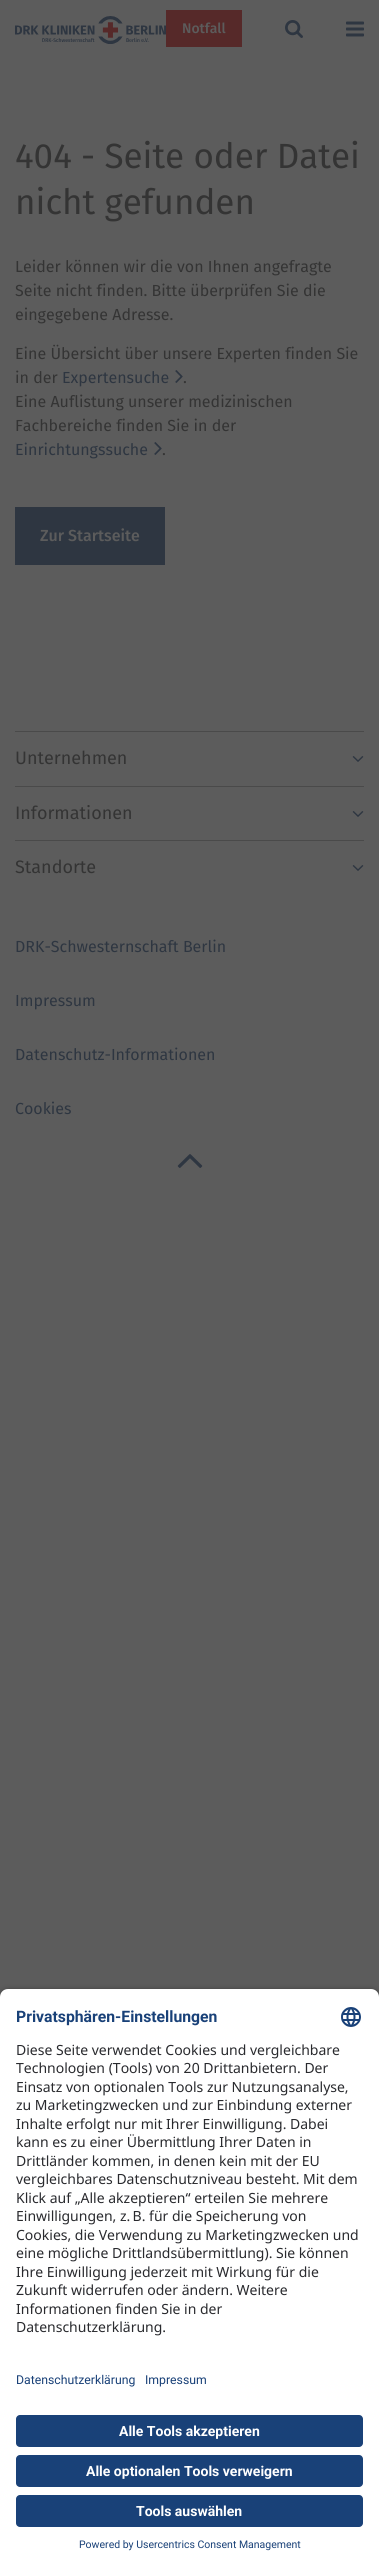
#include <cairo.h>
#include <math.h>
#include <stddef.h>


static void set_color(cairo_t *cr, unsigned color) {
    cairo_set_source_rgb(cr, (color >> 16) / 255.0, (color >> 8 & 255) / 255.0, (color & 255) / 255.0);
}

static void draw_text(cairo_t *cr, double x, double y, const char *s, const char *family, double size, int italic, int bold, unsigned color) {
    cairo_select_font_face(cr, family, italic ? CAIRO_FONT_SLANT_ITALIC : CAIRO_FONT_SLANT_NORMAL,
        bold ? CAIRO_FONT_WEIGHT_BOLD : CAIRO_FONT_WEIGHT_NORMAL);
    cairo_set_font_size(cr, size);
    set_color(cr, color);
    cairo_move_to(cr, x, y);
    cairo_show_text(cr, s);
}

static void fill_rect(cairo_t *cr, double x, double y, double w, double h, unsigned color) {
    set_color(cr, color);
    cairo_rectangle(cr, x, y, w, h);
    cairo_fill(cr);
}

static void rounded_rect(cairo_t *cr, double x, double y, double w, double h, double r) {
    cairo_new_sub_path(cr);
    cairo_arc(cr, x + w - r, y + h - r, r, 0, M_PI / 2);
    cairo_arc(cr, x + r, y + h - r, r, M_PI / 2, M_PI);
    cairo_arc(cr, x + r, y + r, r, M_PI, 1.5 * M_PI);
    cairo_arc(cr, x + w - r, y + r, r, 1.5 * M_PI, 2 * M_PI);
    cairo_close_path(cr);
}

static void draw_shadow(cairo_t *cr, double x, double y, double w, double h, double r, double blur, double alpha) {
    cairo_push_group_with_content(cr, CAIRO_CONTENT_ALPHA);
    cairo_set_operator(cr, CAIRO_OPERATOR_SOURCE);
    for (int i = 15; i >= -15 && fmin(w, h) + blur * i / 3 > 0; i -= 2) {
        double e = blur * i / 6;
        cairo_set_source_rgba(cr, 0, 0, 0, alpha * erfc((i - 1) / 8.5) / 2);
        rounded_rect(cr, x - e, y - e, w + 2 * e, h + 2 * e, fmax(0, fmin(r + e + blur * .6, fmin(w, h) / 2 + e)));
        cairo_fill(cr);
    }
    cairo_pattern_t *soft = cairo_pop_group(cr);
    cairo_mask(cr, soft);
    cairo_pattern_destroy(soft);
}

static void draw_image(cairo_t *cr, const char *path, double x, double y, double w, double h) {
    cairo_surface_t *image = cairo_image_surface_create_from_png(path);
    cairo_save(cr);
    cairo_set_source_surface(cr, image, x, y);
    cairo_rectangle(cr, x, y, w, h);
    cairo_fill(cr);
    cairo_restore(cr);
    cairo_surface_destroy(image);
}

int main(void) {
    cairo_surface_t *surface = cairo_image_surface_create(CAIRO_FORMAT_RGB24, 379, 2567);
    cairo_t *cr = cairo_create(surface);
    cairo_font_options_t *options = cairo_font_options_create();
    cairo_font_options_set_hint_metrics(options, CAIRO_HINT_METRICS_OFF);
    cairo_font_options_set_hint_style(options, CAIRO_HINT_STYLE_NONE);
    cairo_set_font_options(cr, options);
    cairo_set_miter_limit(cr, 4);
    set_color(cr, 0x5C5C5C);
    cairo_paint(cr);
    draw_image(cr, "assets/img1.png", 15, 16, 151, 28);
    fill_rect(cr, 166, 10, 76, 37, 0x562929);
    draw_text(cr, 182, 33, "Notfall", "Fira Sans Medium", 14, 0, 0, 0x5C5C5C);
    draw_image(cr, "assets/img2.png", 285, 20, 18, 18);
    draw_image(cr, "assets/img3.png", 346, 21, 18, 16);
    draw_text(cr, 15, 168, "404 - Seite oder Datei", "Fira Sans", 35, 0, 0, 0x343434);
    draw_text(cr, 15, 214, "nicht gefunden", "Fira Sans", 35, 0, 0, 0x343434);
    draw_text(cr, 15, 272, "Leider können wir die von Ihnen angefragte", "Fira Sans", 16, 0, 0, 0x343434);
    draw_text(cr, 15, 296, "Seite nicht finden. Bitte überprüfen Sie die", "Fira Sans", 16, 0, 0, 0x343434);
    draw_text(cr, 15, 320, "eingegebene Adresse.", "Fira Sans", 16, 0, 0, 0x343434);
    draw_text(cr, 15, 359, "Eine Übersicht über unsere Experten finden Sie", "Fira Sans", 16, 0, 0, 0x343434);
    draw_text(cr, 15, 383, "in der", "Fira Sans", 16, 0, 0, 0x343434);
    draw_text(cr, 62, 383, "Expertensuche", "Fira Sans", 16, 0, 0, 0x2E3641);
    draw_image(cr, "assets/img4.png", 175, 370, 8, 13);
    draw_text(cr, 183, 383, ".", "Fira Sans", 16, 0, 0, 0x343434);
    draw_text(cr, 15, 407, "Eine Auflistung unserer medizinischen", "Fira Sans", 16, 0, 0, 0x343434);
    draw_text(cr, 15, 431, "Fachbereiche finden Sie in der", "Fira Sans", 16, 0, 0, 0x343434);
    draw_text(cr, 15, 455, "Einrichtungssuche", "Fira Sans", 16, 0, 0, 0x2E3641);
    draw_image(cr, "assets/img4.png", 154, 442, 8, 13);
    draw_text(cr, 162, 455, ".", "Fira Sans", 16, 0, 0, 0x343434);
    fill_rect(cr, 15, 507, 150, 58, 0x2E3641);
    draw_text(cr, 40, 541, "Zur Startseite", "Fira Sans Medium", 16, 0, 0, 0x5C5C5C);
    fill_rect(cr, 15, 731, 349, 1, 0x4A4A4A);
    draw_text(cr, 15, 764, "Unternehmen", "Fira Sans", 18, 0, 0, 0x343434);
    draw_image(cr, "assets/img5.png", 352, 756, 12, 6);
    fill_rect(cr, 15, 786, 349, 1, 0x4A4A4A);
    draw_text(cr, 15, 819, "Informationen", "Fira Sans", 18, 0, 0, 0x343434);
    draw_image(cr, "assets/img5.png", 352, 811, 12, 6);
    fill_rect(cr, 15, 840, 349, 1, 0x4A4A4A);
    draw_text(cr, 15, 873, "Standorte", "Fira Sans", 18, 0, 0, 0x343434);
    draw_image(cr, "assets/img5.png", 352, 865, 12, 6);
    draw_text(cr, 15, 952, "DRK-Schwesternschaft Berlin", "Fira Sans", 16, 0, 0, 0x2E3641);
    draw_text(cr, 15, 1006, "Impressum", "Fira Sans", 16, 0, 0, 0x2E3641);
    draw_text(cr, 15, 1060, "Datenschutz-Informationen", "Fira Sans", 16, 0, 0, 0x2E3641);
    draw_text(cr, 15, 1114, "Cookies", "Fira Sans", 16, 0, 0, 0x2E3641);
    draw_image(cr, "assets/img6.png", 177, 1154, 26, 14);
    set_color(cr, 0x000000);
    draw_shadow(cr, 0, 1992, 379, 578, 8, 3.5, 0.8);
    set_color(cr, 0xFFFFFF);
    cairo_new_path(cr);
    cairo_move_to(cr, 8, 1989);
    cairo_line_to(cr, 371, 1989);
    cairo_curve_to(cr, 375.5, 1989, 379, 1992.5, 379, 1997);
    cairo_line_to(cr, 379, 2357);
    cairo_line_to(cr, 0, 2357);
    cairo_line_to(cr, 0, 1997);
    cairo_curve_to(cr, 0, 1992.5, 3.5, 1989, 8, 1989);
    cairo_close_path(cr);
    cairo_fill(cr);
    draw_text(cr, 16, 2022, "Privatsphären-Einstellungen", "Roboto", 15.75, 0, 1, 0x194178);
    draw_image(cr, "assets/img7.png", 341, 2007, 20, 20);
    draw_text(cr, 16, 2055, "Diese Seite verwendet Cookies und vergleichbare", "Noto Sans", 14, 0, 0, 0x292A2E);
    draw_text(cr, 16, 2073, "Technologien (Tools) von 20 Drittanbietern. Der", "Noto Sans", 14, 0, 0, 0x292A2E);
    draw_text(cr, 16, 2092, "Einsatz von optionalen Tools zur Nutzungsanalyse,", "Noto Sans", 14, 0, 0, 0x292A2E);
    draw_text(cr, 16, 2110, "zu Marketingzwecken und zur Einbindung externer", "Noto Sans", 14, 0, 0, 0x292A2E);
    draw_text(cr, 16, 2129, "Inhalte erfolgt nur mit Ihrer Einwilligung. Dabei", "Noto Sans", 14, 0, 0, 0x292A2E);
    draw_text(cr, 16, 2147, "kann es zu einer Übermittlung Ihrer Daten in", "Noto Sans", 14, 0, 0, 0x292A2E);
    draw_text(cr, 16, 2166, "Drittländer kommen, in denen kein mit der EU", "Noto Sans", 14, 0, 0, 0x292A2E);
    draw_text(cr, 16, 2184, "vergleichbares Datenschutzniveau besteht. Mit dem", "Noto Sans", 14, 0, 0, 0x292A2E);
    draw_text(cr, 16, 2203, "Klick auf „Alle akzeptieren“ erteilen Sie mehrere", "Noto Sans", 14, 0, 0, 0x292A2E);
    draw_text(cr, 16, 2221, "Einwilligungen, z. B. für die Speicherung von", "Noto Sans", 14, 0, 0, 0x292A2E);
    draw_text(cr, 16, 2240, "Cookies, die Verwendung zu Marketingzwecken und", "Noto Sans", 14, 0, 0, 0x292A2E);
    draw_text(cr, 16, 2258, "eine mögliche Drittlandsübermittlung). Sie können", "Noto Sans", 14, 0, 0, 0x292A2E);
    draw_text(cr, 16, 2277, "Ihre Einwilligung jederzeit mit Wirkung für die", "Noto Sans", 14, 0, 0, 0x292A2E);
    draw_text(cr, 16, 2295, "Zukunft widerrufen oder ändern. Weitere", "Noto Sans", 14, 0, 0, 0x292A2E);
    draw_text(cr, 16, 2314, "Informationen finden Sie in der", "Noto Sans", 14, 0, 0, 0x292A2E);
    draw_text(cr, 16, 2332, "Datenschutzerklärung.", "Noto Sans", 14, 0, 0, 0x292A2E);
    fill_rect(cr, 0, 2357, 379, 210, 0xFFFFFF);
    draw_text(cr, 16, 2384, "Datenschutzerklärung", "Roboto", 12.25, 0, 0, 0x194178);
    draw_text(cr, 145, 2384, "Impressum", "Roboto", 12.25, 0, 0, 0x194178);
    rounded_rect(cr, 16, 2415, 347, 32, 4);
    cairo_fill(cr);
    draw_text(cr, 119, 2436, "Alle Tools akzeptieren", "Roboto", 14, 0, 1, 0xFFFFFF);
    set_color(cr, 0x194178);
    rounded_rect(cr, 16, 2455, 347, 32, 4);
    cairo_fill(cr);
    draw_text(cr, 86, 2476, "Alle optionalen Tools verweigern", "Roboto", 14, 0, 1, 0xFFFFFF);
    set_color(cr, 0x194178);
    rounded_rect(cr, 16, 2495, 347, 32, 4);
    cairo_fill(cr);
    draw_text(cr, 136, 2516, "Tools auswählen", "Roboto", 14, 0, 1, 0xFFFFFF);
    draw_text(cr, 79, 2548, "Powered by Usercentrics Consent Management", "Roboto", 10.5, 0, 0, 0x194178);
    cairo_surface_write_to_png(surface, "output.png");
    cairo_font_options_destroy(options);
    cairo_destroy(cr);
    cairo_surface_destroy(surface);
    return 0;
}
